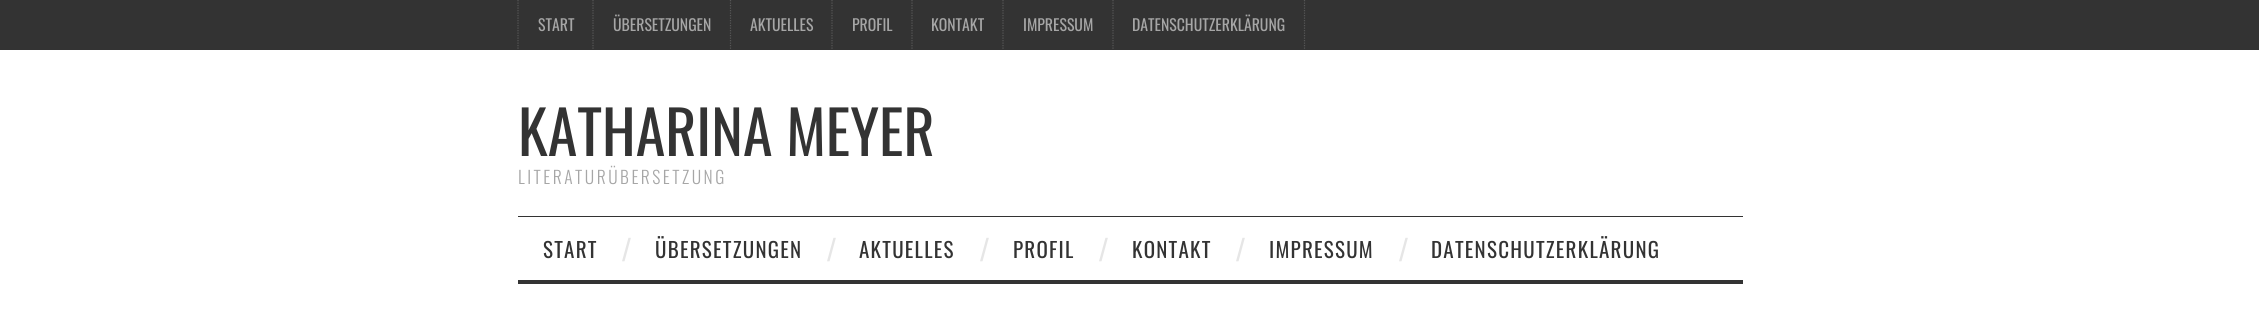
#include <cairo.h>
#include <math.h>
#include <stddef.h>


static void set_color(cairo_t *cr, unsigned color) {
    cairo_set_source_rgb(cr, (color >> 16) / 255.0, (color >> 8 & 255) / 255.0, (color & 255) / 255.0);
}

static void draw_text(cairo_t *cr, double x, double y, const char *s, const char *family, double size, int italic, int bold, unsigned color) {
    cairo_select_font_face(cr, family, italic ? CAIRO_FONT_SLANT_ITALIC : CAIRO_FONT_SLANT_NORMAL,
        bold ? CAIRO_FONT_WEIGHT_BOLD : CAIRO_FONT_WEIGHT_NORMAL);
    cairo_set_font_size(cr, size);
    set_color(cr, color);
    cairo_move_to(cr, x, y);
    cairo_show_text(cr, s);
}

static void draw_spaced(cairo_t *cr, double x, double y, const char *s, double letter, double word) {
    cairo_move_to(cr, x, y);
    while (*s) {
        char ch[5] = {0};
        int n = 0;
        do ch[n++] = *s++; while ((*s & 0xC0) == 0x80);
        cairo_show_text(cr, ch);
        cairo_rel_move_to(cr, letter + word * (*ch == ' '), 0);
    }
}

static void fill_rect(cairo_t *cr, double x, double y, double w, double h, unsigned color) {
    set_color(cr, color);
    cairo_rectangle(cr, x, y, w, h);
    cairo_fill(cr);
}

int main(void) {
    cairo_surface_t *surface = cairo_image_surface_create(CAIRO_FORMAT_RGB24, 2259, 318);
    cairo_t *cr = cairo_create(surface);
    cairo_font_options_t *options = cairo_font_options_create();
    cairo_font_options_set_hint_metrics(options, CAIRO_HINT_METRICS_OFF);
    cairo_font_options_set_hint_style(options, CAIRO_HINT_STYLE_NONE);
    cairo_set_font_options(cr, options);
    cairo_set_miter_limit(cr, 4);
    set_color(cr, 0xFFFFFF);
    cairo_paint(cr);
    fill_rect(cr, 0, 0, 2259, 50, 0x333333);
    cairo_new_path(cr);
    cairo_move_to(cr, 518, 0);
    cairo_line_to(cr, 518, 50);
    set_color(cr, 0x565656);
    cairo_set_line_width(cr, 1.2);
    cairo_set_dash(cr, (double[]){1.25, 1.25}, 2, 0);
    cairo_stroke(cr);
    cairo_new_path(cr);
    cairo_move_to(cr, 593, 0);
    cairo_line_to(cr, 593, 50);
    cairo_stroke(cr);
    draw_text(cr, 538, 31, "START", "Oswald", 15.75, 0, 0, 0xA6A6A6);
    cairo_new_path(cr);
    cairo_move_to(cr, 730.5, 0);
    cairo_line_to(cr, 730.5, 50);
    set_color(cr, 0x565656);
    cairo_stroke(cr);
    draw_text(cr, 613, 31, "ÜBERSETZUNGEN", "Oswald", 15.75, 0, 0, 0xA6A6A6);
    cairo_new_path(cr);
    cairo_move_to(cr, 832, 0);
    cairo_line_to(cr, 832, 50);
    set_color(cr, 0x565656);
    cairo_stroke(cr);
    draw_text(cr, 750, 31, "AKTUELLES", "Oswald", 15.75, 0, 0, 0xA6A6A6);
    cairo_new_path(cr);
    cairo_move_to(cr, 912, 0);
    cairo_line_to(cr, 912, 50);
    set_color(cr, 0x565656);
    cairo_stroke(cr);
    draw_text(cr, 852, 31, "PROFIL", "Oswald", 15.75, 0, 0, 0xA6A6A6);
    cairo_new_path(cr);
    cairo_move_to(cr, 1003, 0);
    cairo_line_to(cr, 1003, 50);
    set_color(cr, 0x565656);
    cairo_stroke(cr);
    draw_text(cr, 931, 31, "KONTAKT", "Oswald", 15.75, 0, 0, 0xA6A6A6);
    cairo_new_path(cr);
    cairo_move_to(cr, 1113, 0);
    cairo_line_to(cr, 1113, 50);
    set_color(cr, 0x565656);
    cairo_stroke(cr);
    draw_text(cr, 1023, 31, "IMPRESSUM", "Oswald", 15.75, 0, 0, 0xA6A6A6);
    cairo_new_path(cr);
    cairo_move_to(cr, 1304.5, 0);
    cairo_line_to(cr, 1304.5, 50);
    set_color(cr, 0x565656);
    cairo_stroke(cr);
    draw_text(cr, 1132, 31, "DATENSCHUTZERKLÄRUNG", "Oswald", 15.75, 0, 0, 0xA6A6A6);
    draw_text(cr, 518, 156, "KATHARINA MEYER", "Oswald", 60, 0, 0, 0x333333);
    cairo_select_font_face(cr, "Oswald Light", CAIRO_FONT_SLANT_NORMAL, CAIRO_FONT_WEIGHT_NORMAL);
    cairo_set_font_size(cr, 17.5);
    set_color(cr, 0xA6A6A6);
    draw_spaced(cr, 518, 184, "LITERATURÜBERSETZUNG", 2.5, 0);
    fill_rect(cr, 518, 216, 1225, 1, 0x333333);
    fill_rect(cr, 518, 280, 1225, 4, 0x333333);
    cairo_select_font_face(cr, "Oswald", CAIRO_FONT_SLANT_NORMAL, CAIRO_FONT_WEIGHT_NORMAL);
    cairo_set_font_size(cr, 21);
    draw_spaced(cr, 543, 258, "START", 1.25, 0);
    draw_text(cr, 622, 261, "/", "Liberation Sans", 32, 0, 0, 0xE6E6E6);
    cairo_select_font_face(cr, "Oswald", CAIRO_FONT_SLANT_NORMAL, CAIRO_FONT_WEIGHT_NORMAL);
    cairo_set_font_size(cr, 21);
    set_color(cr, 0x333333);
    draw_spaced(cr, 655, 258, "ÜBERSETZUNGEN", 1.25, 0);
    draw_text(cr, 827, 261, "/", "Liberation Sans", 32, 0, 0, 0xE6E6E6);
    cairo_select_font_face(cr, "Oswald", CAIRO_FONT_SLANT_NORMAL, CAIRO_FONT_WEIGHT_NORMAL);
    cairo_set_font_size(cr, 21);
    set_color(cr, 0x333333);
    draw_spaced(cr, 859, 258, "AKTUELLES", 1.25, 0);
    draw_text(cr, 980, 261, "/", "Liberation Sans", 32, 0, 0, 0xE6E6E6);
    cairo_select_font_face(cr, "Oswald", CAIRO_FONT_SLANT_NORMAL, CAIRO_FONT_WEIGHT_NORMAL);
    cairo_set_font_size(cr, 21);
    set_color(cr, 0x333333);
    draw_spaced(cr, 1013, 258, "PROFIL", 1.25, 0);
    draw_text(cr, 1099, 261, "/", "Liberation Sans", 32, 0, 0, 0xE6E6E6);
    cairo_select_font_face(cr, "Oswald", CAIRO_FONT_SLANT_NORMAL, CAIRO_FONT_WEIGHT_NORMAL);
    cairo_set_font_size(cr, 21);
    set_color(cr, 0x333333);
    draw_spaced(cr, 1132, 258, "KONTAKT", 1.25, 0);
    draw_text(cr, 1236, 261, "/", "Liberation Sans", 32, 0, 0, 0xE6E6E6);
    cairo_select_font_face(cr, "Oswald", CAIRO_FONT_SLANT_NORMAL, CAIRO_FONT_WEIGHT_NORMAL);
    cairo_set_font_size(cr, 21);
    set_color(cr, 0x333333);
    draw_spaced(cr, 1269, 258, "IMPRESSUM", 1.25, 0);
    draw_text(cr, 1399, 261, "/", "Liberation Sans", 32, 0, 0, 0xE6E6E6);
    cairo_select_font_face(cr, "Oswald", CAIRO_FONT_SLANT_NORMAL, CAIRO_FONT_WEIGHT_NORMAL);
    cairo_set_font_size(cr, 21);
    set_color(cr, 0x333333);
    draw_spaced(cr, 1431, 258, "DATENSCHUTZERKLÄRUNG", 1.25, 0);
    cairo_surface_write_to_png(surface, "output.png");
    cairo_font_options_destroy(options);
    cairo_destroy(cr);
    cairo_surface_destroy(surface);
    return 0;
}
